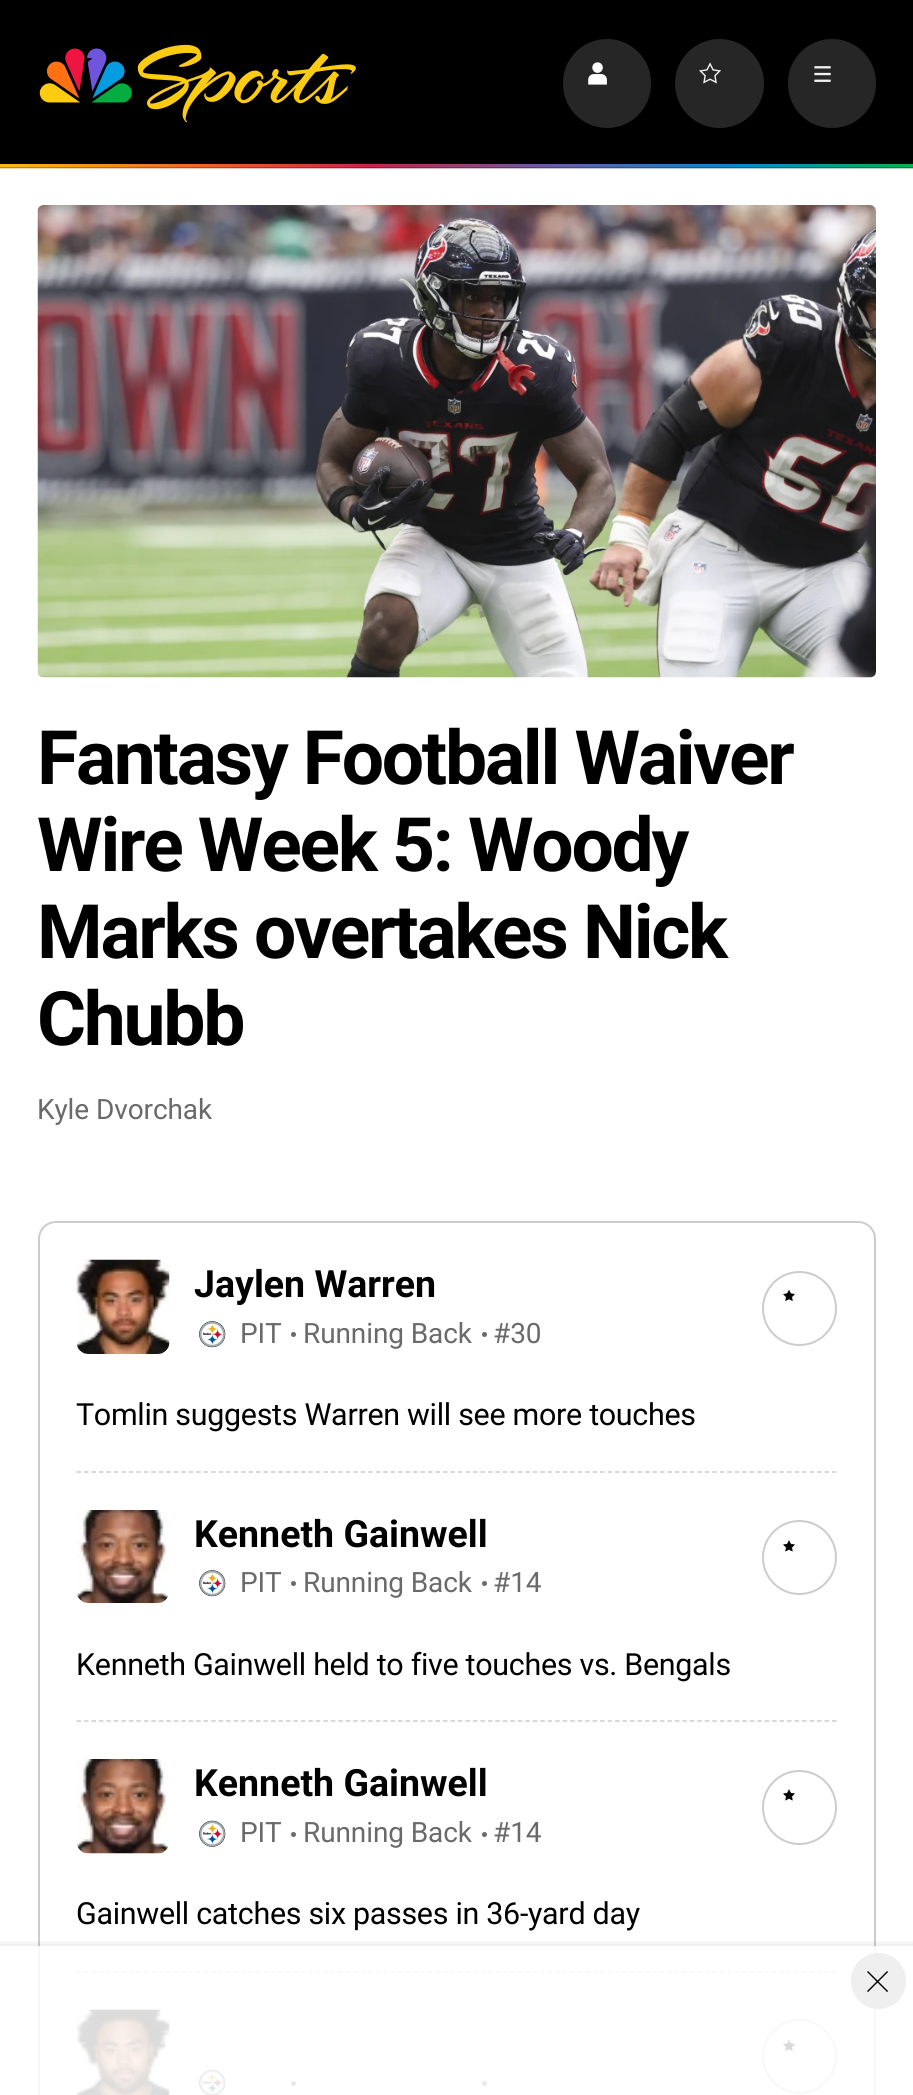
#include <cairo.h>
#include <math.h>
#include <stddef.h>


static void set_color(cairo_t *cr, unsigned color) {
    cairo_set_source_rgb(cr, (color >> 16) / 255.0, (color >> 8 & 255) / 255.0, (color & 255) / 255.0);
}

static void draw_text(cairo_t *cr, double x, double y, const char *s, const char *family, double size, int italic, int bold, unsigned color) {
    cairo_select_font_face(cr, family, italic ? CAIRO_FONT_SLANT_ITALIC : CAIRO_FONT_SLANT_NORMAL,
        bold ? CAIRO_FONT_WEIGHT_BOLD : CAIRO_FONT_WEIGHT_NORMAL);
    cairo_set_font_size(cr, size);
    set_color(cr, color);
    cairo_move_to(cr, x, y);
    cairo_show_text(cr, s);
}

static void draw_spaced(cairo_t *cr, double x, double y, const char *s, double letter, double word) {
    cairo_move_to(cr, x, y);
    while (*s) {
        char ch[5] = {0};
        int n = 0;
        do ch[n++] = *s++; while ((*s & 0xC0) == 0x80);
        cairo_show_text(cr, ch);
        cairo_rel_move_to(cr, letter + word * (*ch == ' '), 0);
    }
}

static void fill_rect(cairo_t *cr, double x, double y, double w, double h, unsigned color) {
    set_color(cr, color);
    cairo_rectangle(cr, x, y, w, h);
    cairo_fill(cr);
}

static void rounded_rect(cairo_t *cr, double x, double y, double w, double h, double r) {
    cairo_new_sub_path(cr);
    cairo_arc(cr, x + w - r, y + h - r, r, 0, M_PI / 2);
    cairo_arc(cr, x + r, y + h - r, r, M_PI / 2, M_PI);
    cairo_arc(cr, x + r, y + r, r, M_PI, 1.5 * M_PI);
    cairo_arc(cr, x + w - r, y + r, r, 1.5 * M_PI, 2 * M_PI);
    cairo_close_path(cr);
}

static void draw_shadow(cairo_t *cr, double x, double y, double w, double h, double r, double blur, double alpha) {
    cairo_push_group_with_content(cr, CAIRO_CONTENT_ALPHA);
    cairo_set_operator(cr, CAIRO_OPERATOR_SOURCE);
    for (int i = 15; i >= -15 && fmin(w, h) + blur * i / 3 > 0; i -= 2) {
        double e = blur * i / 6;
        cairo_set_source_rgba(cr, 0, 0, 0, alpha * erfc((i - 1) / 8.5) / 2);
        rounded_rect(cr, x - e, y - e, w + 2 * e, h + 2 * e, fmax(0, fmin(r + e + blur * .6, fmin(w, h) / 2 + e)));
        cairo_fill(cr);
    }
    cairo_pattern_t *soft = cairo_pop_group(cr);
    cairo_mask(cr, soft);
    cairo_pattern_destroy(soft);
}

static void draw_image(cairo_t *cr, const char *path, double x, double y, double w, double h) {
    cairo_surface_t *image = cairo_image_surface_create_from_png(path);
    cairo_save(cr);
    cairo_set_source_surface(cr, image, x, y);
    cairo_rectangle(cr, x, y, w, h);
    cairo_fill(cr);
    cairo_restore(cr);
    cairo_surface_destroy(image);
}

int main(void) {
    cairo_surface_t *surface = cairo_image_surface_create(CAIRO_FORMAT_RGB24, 913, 2095);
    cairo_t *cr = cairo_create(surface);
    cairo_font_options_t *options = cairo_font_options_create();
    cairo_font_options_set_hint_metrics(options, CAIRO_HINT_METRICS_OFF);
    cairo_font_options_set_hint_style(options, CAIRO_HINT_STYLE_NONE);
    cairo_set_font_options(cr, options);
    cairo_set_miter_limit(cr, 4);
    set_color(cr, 0xFFFFFF);
    cairo_paint(cr);
    fill_rect(cr, 0, 0, 913, 168, 0x000000);
    cairo_set_source_rgba(cr, 0, 0, 0, 0.1);
    cairo_rectangle(cr, 0, 168, 913, 1);
    cairo_fill(cr);
    draw_image(cr, "assets/img1.png", 39, 44, 317, 78);
    set_color(cr, 0x262626);
    rounded_rect(cr, 563, 39, 88, 89, 44);
    cairo_fill(cr);
    draw_image(cr, "assets/img2.png", 588, 62, 19, 23);
    cairo_arc(cr, 719.5, 83.5, 44.5, 0, 2 * M_PI);
    cairo_fill(cr);
    draw_image(cr, "assets/img3.png", 699, 62, 23, 22);
    rounded_rect(cr, 788, 39, 88, 89, 44);
    cairo_fill(cr);
    draw_image(cr, "assets/img4.png", 814, 66, 17, 16);
    draw_image(cr, "assets/img5.png", 0, 164, 913, 5);
    draw_image(cr, "assets/img6.png", 37, 205, 839, 473);
    cairo_select_font_face(cr, "Roboto", CAIRO_FONT_SLANT_NORMAL, CAIRO_FONT_WEIGHT_BOLD);
    cairo_set_font_size(cr, 75);
    set_color(cr, 0x000000);
    draw_spaced(cr, 37, 784, "Fantasy Football Waiver", -2.25, 0);
    draw_spaced(cr, 37, 871, "Wire Week 5: Woody", -2.25, 0);
    draw_spaced(cr, 37, 958, "Marks overtakes Nick", -2.25, 0);
    draw_spaced(cr, 37, 1045, "Chubb", -2.25, 0);
    cairo_select_font_face(cr, "Roboto", CAIRO_FONT_SLANT_NORMAL, CAIRO_FONT_WEIGHT_NORMAL);
    cairo_set_font_size(cr, 28);
    set_color(cr, 0x6A6A6A);
    draw_spaced(cr, 37, 1119, "Kyle Dvorchak", -0.1, 0);
    rounded_rect(cr, 39, 1222, 836, 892, 17);
    set_color(cr, 0xCCCCCC);
    cairo_stroke(cr);
    cairo_new_path(cr);
    cairo_move_to(cr, 76.5, 1472);
    cairo_line_to(cr, 837, 1472);
    cairo_set_line_width(cr, 1.5);
    cairo_set_dash(cr, (double[]){4.5, 2.98}, 2, 0);
    cairo_stroke(cr);
    draw_image(cr, "assets/img7.png", 76, 1259, 94, 95);
    draw_text(cr, 194, 1297, "Jaylen Warren", "Roboto", 37.5, 0, 1, 0x000000);
    draw_image(cr, "assets/img8.png", 199, 1321, 27, 27);
    cairo_select_font_face(cr, "Roboto", CAIRO_FONT_SLANT_NORMAL, CAIRO_FONT_WEIGHT_NORMAL);
    cairo_set_font_size(cr, 28);
    set_color(cr, 0x6A6A6A);
    draw_spaced(cr, 240, 1343, "PIT", -0.1, 0);
    cairo_new_path(cr);
    cairo_arc(cr, 293.5, 1334.5, 2.5, 0, 2 * M_PI);
    cairo_fill(cr);
    draw_spaced(cr, 303, 1343, "Running Back", -0.1, 0);
    cairo_new_path(cr);
    cairo_arc(cr, 484.5, 1334.5, 2.5, 0, 2 * M_PI);
    cairo_fill(cr);
    draw_spaced(cr, 493, 1343, "#30", -0.1, 0);
    cairo_new_path(cr);
    cairo_arc(cr, 799.5, 1308.5, 36.5, 0, 2 * M_PI);
    set_color(cr, 0xCCCCCC);
    cairo_set_line_width(cr, 2);
    cairo_set_dash(cr, NULL, 0, 0);
    cairo_stroke(cr);
    draw_image(cr, "assets/img9.png", 783, 1289, 12, 12);
    cairo_set_font_size(cr, 30.45);
    set_color(cr, 0x000000);
    draw_spaced(cr, 76, 1425, "Tomlin suggests Warren will see more touches", -0.3, 0);
    cairo_new_path(cr);
    cairo_move_to(cr, 76.5, 1721);
    cairo_line_to(cr, 837, 1721);
    set_color(cr, 0xCCCCCC);
    cairo_set_line_width(cr, 1.5);
    cairo_set_dash(cr, (double[]){4.5, 2.98}, 2, 0);
    cairo_stroke(cr);
    draw_image(cr, "assets/img10.png", 77, 1510, 92, 93);
    draw_text(cr, 194, 1547, "Kenneth Gainwell", "Roboto", 37.5, 0, 1, 0x000000);
    draw_image(cr, "assets/img8.png", 199, 1570, 27, 27);
    cairo_select_font_face(cr, "Roboto", CAIRO_FONT_SLANT_NORMAL, CAIRO_FONT_WEIGHT_NORMAL);
    cairo_set_font_size(cr, 28);
    set_color(cr, 0x6A6A6A);
    draw_spaced(cr, 240, 1592, "PIT", -0.1, 0);
    cairo_new_path(cr);
    cairo_arc(cr, 293.5, 1583.5, 2.5, 0, 2 * M_PI);
    cairo_fill(cr);
    draw_spaced(cr, 303, 1592, "Running Back", -0.1, 0);
    cairo_new_path(cr);
    cairo_arc(cr, 484.5, 1583.5, 2.5, 0, 2 * M_PI);
    cairo_fill(cr);
    draw_spaced(cr, 493, 1592, "#14", -0.1, 0);
    cairo_new_path(cr);
    cairo_arc(cr, 799.5, 1557.5, 36.5, 0, 2 * M_PI);
    set_color(cr, 0xCCCCCC);
    cairo_set_line_width(cr, 2);
    cairo_set_dash(cr, NULL, 0, 0);
    cairo_stroke(cr);
    draw_image(cr, "assets/img11.png", 783, 1540, 12, 12);
    cairo_set_font_size(cr, 30.45);
    set_color(cr, 0x000000);
    draw_spaced(cr, 76, 1675, "Kenneth Gainwell held to five touches vs. Bengals", -0.3, 0);
    cairo_new_path(cr);
    cairo_move_to(cr, 76.5, 1972);
    cairo_line_to(cr, 837, 1972);
    set_color(cr, 0xCCCCCC);
    cairo_set_line_width(cr, 1.5);
    cairo_set_dash(cr, (double[]){4.5, 2.98}, 2, 0);
    cairo_stroke(cr);
    draw_image(cr, "assets/img12.png", 77, 1759, 92, 95);
    draw_text(cr, 194, 1796, "Kenneth Gainwell", "Roboto", 37.5, 0, 1, 0x000000);
    draw_image(cr, "assets/img13.png", 199, 1820, 27, 27);
    cairo_select_font_face(cr, "Roboto", CAIRO_FONT_SLANT_NORMAL, CAIRO_FONT_WEIGHT_NORMAL);
    cairo_set_font_size(cr, 28);
    set_color(cr, 0x6A6A6A);
    draw_spaced(cr, 240, 1842, "PIT", -0.1, 0);
    cairo_new_path(cr);
    cairo_arc(cr, 293.5, 1834.5, 2.5, 0, 2 * M_PI);
    cairo_fill(cr);
    draw_spaced(cr, 303, 1842, "Running Back", -0.1, 0);
    cairo_new_path(cr);
    cairo_arc(cr, 484.5, 1834.5, 2.5, 0, 2 * M_PI);
    cairo_fill(cr);
    draw_spaced(cr, 493, 1842, "#14", -0.1, 0);
    cairo_new_path(cr);
    cairo_arc(cr, 799.5, 1807.5, 36.5, 0, 2 * M_PI);
    set_color(cr, 0xCCCCCC);
    cairo_set_line_width(cr, 2);
    cairo_set_dash(cr, NULL, 0, 0);
    cairo_stroke(cr);
    draw_image(cr, "assets/img11.png", 783, 1789, 12, 12);
    cairo_set_font_size(cr, 30.45);
    set_color(cr, 0x000000);
    draw_spaced(cr, 76, 1924, "Gainwell catches six passes in 36-yard day", -0.3, 0);
    draw_image(cr, "assets/img14.png", 76, 2009, 94, 86);
    draw_image(cr, "assets/img15.png", 199, 2069, 27, 26);
    set_color(cr, 0x6A6A6A);
    cairo_arc(cr, 293.5, 2083.5, 2.5, 0, 2 * M_PI);
    cairo_fill(cr);
    cairo_arc(cr, 484.5, 2083.5, 2.5, 0, 2 * M_PI);
    cairo_fill(cr);
    cairo_arc(cr, 799.5, 2056.5, 36.5, 0, 2 * M_PI);
    set_color(cr, 0xCCCCCC);
    cairo_stroke(cr);
    draw_image(cr, "assets/img9.png", 783, 2039, 12, 12);
    cairo_save(cr);
    cairo_rectangle(cr, 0, 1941, 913, 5);
    cairo_clip(cr);
    set_color(cr, 0x000000);
    draw_shadow(cr, 0, 1943, 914, 150, 0, 3, 0.08);
    cairo_restore(cr);
    cairo_set_source_rgba(cr, 1, 1, 1, 0.85);
    cairo_rectangle(cr, 38, 1946, 838, 149);
    cairo_fill(cr);
    set_color(cr, 0xEFEFEF);
    rounded_rect(cr, 851, 1953, 55, 56, 27.5);
    cairo_fill(cr);
    draw_image(cr, "assets/img16.png", 867, 1971, 21, 21);
    cairo_surface_write_to_png(surface, "output.png");
    cairo_font_options_destroy(options);
    cairo_destroy(cr);
    cairo_surface_destroy(surface);
    return 0;
}
